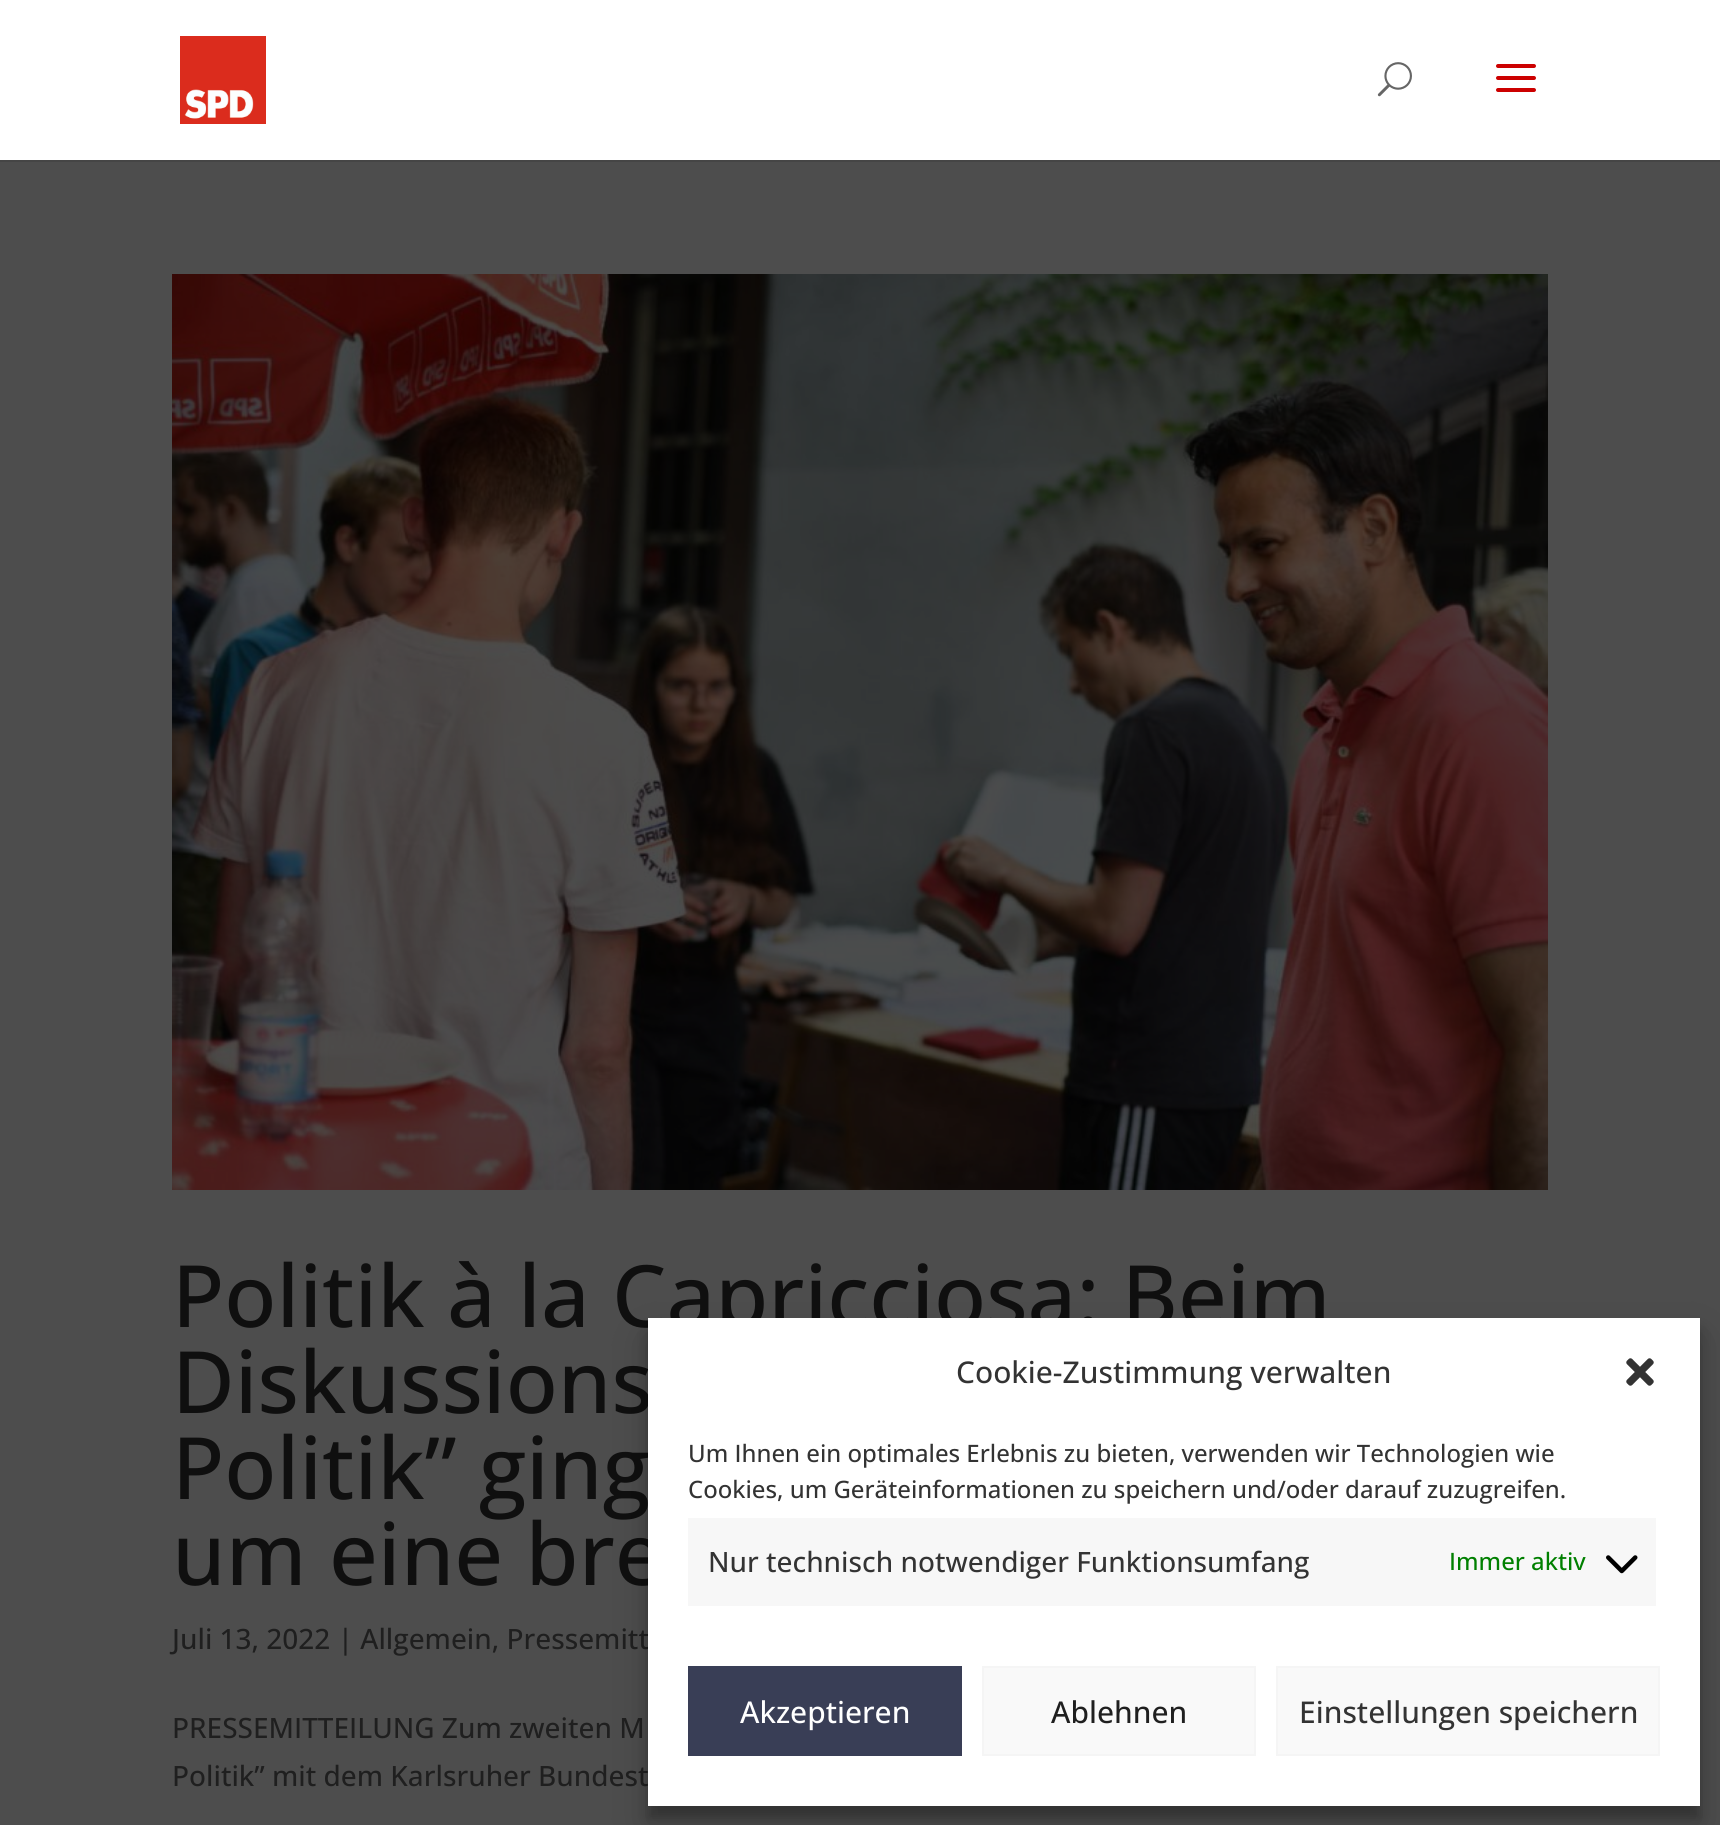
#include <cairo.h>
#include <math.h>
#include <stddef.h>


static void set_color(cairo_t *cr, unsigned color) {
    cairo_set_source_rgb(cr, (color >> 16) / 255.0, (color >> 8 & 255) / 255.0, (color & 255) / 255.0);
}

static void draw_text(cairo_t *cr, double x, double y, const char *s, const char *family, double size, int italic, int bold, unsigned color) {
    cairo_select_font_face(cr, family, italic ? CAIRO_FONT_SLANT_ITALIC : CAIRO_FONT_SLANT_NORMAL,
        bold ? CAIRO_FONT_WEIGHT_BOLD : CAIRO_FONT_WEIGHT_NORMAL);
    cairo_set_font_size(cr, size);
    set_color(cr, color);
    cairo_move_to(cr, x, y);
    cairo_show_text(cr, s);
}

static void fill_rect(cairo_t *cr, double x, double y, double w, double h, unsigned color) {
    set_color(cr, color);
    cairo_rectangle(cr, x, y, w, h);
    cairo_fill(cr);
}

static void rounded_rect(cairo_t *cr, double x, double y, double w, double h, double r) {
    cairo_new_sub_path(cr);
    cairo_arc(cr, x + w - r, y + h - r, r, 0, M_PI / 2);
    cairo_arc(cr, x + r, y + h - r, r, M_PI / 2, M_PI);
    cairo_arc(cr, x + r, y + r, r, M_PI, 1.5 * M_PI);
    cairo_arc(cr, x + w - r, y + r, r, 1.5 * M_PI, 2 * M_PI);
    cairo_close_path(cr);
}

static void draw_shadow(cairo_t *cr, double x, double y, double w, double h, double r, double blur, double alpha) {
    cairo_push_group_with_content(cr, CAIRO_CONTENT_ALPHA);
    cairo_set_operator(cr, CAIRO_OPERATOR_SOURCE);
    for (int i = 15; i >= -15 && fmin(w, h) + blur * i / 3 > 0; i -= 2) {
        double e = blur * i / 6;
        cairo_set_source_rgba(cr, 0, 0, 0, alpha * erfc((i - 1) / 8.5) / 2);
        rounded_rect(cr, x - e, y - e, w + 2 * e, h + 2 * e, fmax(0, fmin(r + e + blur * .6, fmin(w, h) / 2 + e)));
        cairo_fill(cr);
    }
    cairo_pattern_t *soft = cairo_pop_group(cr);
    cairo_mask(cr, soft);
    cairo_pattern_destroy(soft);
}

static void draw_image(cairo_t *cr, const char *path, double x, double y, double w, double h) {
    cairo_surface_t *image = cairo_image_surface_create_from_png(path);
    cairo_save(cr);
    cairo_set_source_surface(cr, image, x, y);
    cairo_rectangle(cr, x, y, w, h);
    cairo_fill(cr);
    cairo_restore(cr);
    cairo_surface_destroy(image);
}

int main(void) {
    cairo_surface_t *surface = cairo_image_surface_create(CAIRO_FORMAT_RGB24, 1720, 1825);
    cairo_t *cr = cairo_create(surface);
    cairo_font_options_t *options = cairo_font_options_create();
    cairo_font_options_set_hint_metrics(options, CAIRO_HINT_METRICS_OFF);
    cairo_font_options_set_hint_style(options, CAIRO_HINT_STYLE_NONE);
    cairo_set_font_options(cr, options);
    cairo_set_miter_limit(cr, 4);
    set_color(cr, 0x4D4D4D);
    cairo_paint(cr);
    fill_rect(cr, 0, 160, 1720, 2, 0x454545);
    fill_rect(cr, 0, 0, 1720, 160, 0xFFFFFF);
    draw_image(cr, "assets/img1.png", 180, 36, 86, 88);
    draw_image(cr, "assets/img2.png", 1377, 62, 35, 35);
    draw_image(cr, "assets/img3.png", 1496, 64, 40, 28);
    draw_image(cr, "assets/img4.png", 172, 274, 1376, 916);
    draw_text(cr, 172, 1327, "Politik à la Capricciosa: Beim", "Open Sans Medium", 86, 0, 0, 0x0F0F0F);
    draw_text(cr, 172, 1413, "Diskussions", "Open Sans Medium", 86, 0, 0, 0x0F0F0F);
    draw_text(cr, 172, 1499, "Politik” ging", "Open Sans Medium", 86, 0, 0, 0x0F0F0F);
    draw_text(cr, 172, 1585, "um eine bre", "Open Sans Medium", 86, 0, 0, 0x0F0F0F);
    draw_text(cr, 172, 1649, "Juli 13, 2022 | Allgemein, Pressemitt", "Open Sans Medium", 28, 0, 0, 0x1F1F1F);
    draw_text(cr, 172, 1738, "PRESSEMITTEILUNG Zum zweiten M", "Open Sans Medium", 28, 0, 0, 0x1F1F1F);
    draw_text(cr, 172, 1786, "Politik” mit dem Karlsruher Bundest", "Open Sans Medium", 28, 0, 0, 0x1F1F1F);
    set_color(cr, 0x000000);
    draw_shadow(cr, 648, 1330, 1052, 488, 0, 6, 0.23);
    draw_shadow(cr, 648, 1338, 1052, 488, 0, 20, 0.19);
    fill_rect(cr, 648, 1318, 1052, 488, 0xFFFFFF);
    draw_text(cr, 956, 1383, "Cookie-Zustimmung verwalten", "Open Sans Medium", 30, 0, 0, 0x333333);
    draw_image(cr, "assets/img5.png", 1626, 1358, 28, 28);
    draw_text(cr, 688, 1462, "Um Ihnen ein optimales Erlebnis zu bieten, verwenden wir Technologien wie", "Open Sans Medium", 24, 0, 0, 0x333333);
    draw_text(cr, 688, 1498, "Cookies, um Geräteinformationen zu speichern und/oder darauf zuzugreifen.", "Open Sans Medium", 24, 0, 0, 0x333333);
    fill_rect(cr, 688, 1518, 968, 88, 0xF7F7F7);
    draw_text(cr, 708, 1572, "Nur technisch notwendiger Funktionsumfang", "Open Sans Medium", 28, 0, 0, 0x333333);
    draw_text(cr, 1449, 1570, "Immer aktiv", "Open Sans Medium", 24, 0, 0, 0x008000);
    draw_image(cr, "assets/img6.png", 1606, 1555, 32, 19);
    fill_rect(cr, 688, 1666, 274, 90, 0x393E56);
    draw_text(cr, 740, 1723, "Akzeptieren", "Open Sans Medium", 30, 0, 0, 0xFFFFFF);
    set_color(cr, 0xF9F9F9);
    cairo_rectangle(cr, 983, 1667, 272, 88);
    cairo_fill_preserve(cr);
    set_color(cr, 0xF5F5F5);
    cairo_stroke(cr);
    draw_text(cr, 1051, 1723, "Ablehnen", "Open Sans Medium", 30, 0, 0, 0x1F1F1F);
    set_color(cr, 0xF9F9F9);
    cairo_rectangle(cr, 1277, 1667, 382, 88);
    cairo_fill_preserve(cr);
    set_color(cr, 0xF5F5F5);
    cairo_stroke(cr);
    draw_text(cr, 1299, 1723, "Einstellungen speichern", "Open Sans Medium", 30, 0, 0, 0x333333);
    cairo_surface_write_to_png(surface, "output.png");
    cairo_font_options_destroy(options);
    cairo_destroy(cr);
    cairo_surface_destroy(surface);
    return 0;
}
